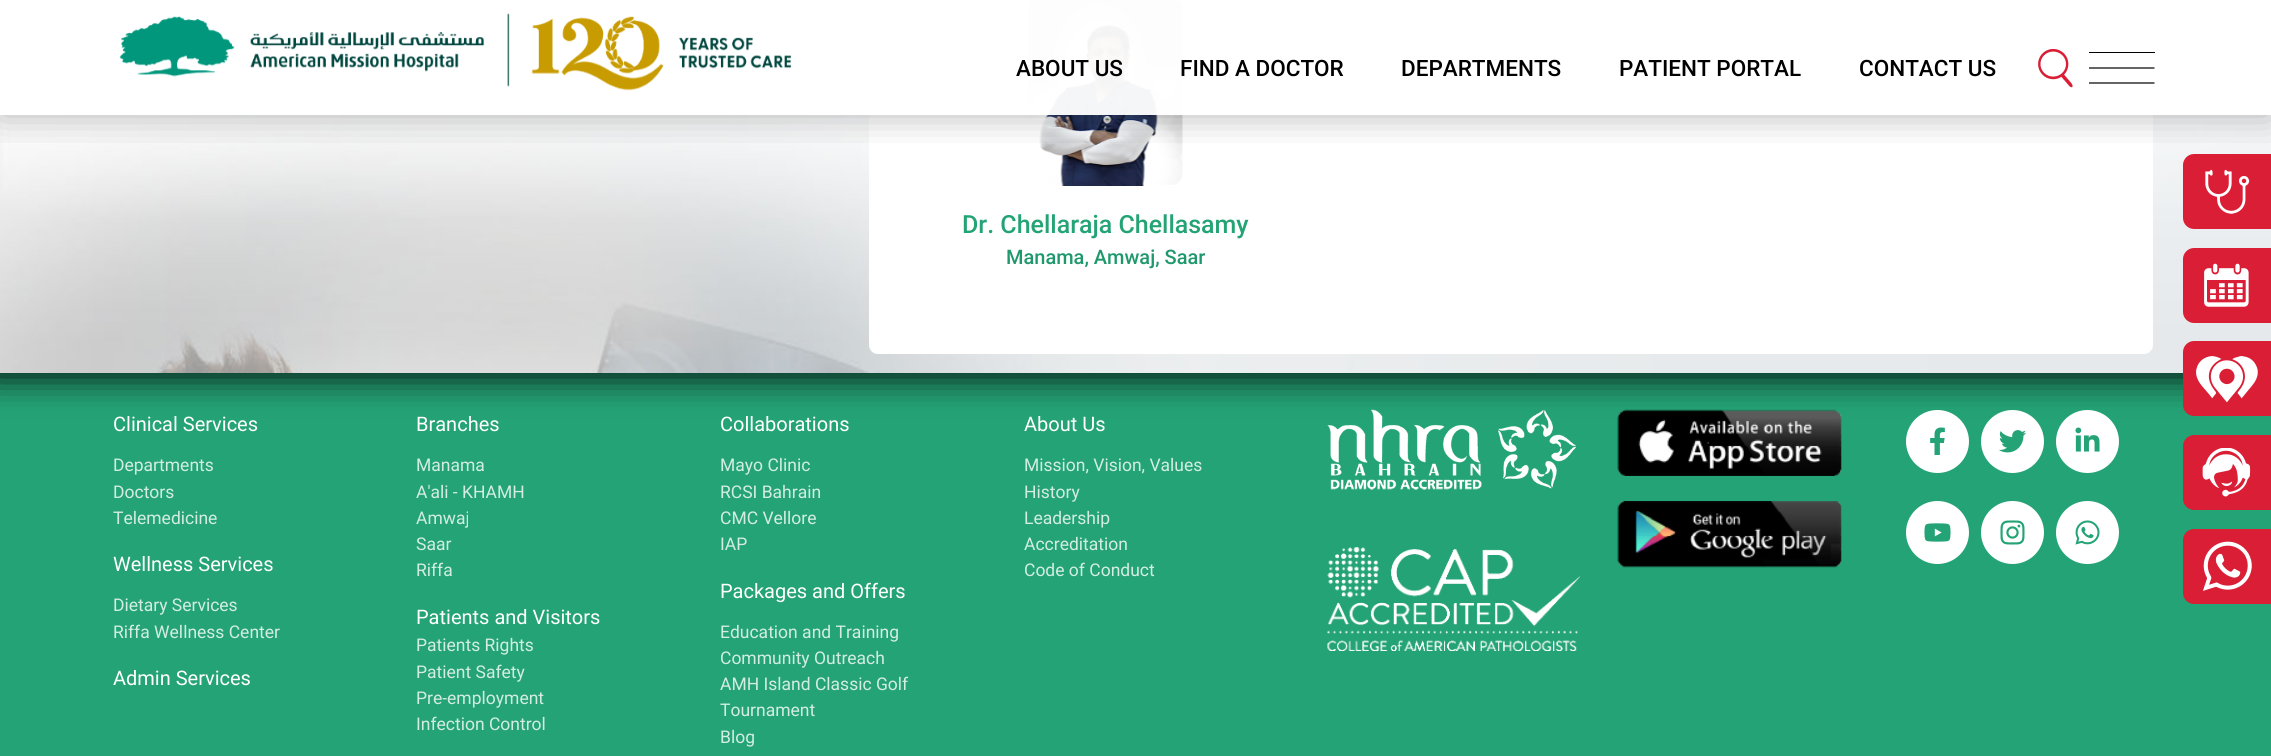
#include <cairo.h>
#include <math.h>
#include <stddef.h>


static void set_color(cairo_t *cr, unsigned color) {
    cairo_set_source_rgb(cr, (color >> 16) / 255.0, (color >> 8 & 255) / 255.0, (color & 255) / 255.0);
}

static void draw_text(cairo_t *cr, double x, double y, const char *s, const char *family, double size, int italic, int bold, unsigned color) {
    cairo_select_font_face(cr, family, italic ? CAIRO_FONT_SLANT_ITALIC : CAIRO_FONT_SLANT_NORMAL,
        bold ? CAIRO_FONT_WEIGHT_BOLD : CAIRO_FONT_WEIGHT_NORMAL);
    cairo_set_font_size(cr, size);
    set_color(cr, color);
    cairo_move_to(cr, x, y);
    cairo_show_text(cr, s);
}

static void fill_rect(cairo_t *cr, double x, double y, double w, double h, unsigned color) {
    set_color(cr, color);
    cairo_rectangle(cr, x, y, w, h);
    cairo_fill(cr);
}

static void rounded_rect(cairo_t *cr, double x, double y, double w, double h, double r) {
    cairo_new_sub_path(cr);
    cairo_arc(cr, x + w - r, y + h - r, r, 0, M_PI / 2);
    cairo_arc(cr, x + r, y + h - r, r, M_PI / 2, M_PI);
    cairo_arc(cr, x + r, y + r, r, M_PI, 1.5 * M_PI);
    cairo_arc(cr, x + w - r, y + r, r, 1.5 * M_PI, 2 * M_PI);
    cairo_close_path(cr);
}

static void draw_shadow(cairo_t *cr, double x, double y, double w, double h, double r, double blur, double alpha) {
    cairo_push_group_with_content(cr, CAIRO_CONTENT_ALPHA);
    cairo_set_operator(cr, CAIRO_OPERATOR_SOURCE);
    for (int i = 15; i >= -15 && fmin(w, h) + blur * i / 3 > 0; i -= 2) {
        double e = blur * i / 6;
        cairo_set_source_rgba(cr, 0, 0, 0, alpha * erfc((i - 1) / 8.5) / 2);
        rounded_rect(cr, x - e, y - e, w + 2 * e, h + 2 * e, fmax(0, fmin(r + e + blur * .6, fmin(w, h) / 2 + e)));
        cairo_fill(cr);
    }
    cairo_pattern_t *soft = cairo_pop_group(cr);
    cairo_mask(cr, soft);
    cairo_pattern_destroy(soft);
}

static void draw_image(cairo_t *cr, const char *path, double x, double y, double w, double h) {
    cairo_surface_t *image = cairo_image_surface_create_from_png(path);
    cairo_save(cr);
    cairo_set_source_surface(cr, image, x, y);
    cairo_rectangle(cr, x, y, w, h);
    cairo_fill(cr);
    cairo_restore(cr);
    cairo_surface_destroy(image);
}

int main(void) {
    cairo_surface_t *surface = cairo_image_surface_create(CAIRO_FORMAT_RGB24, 2271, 756);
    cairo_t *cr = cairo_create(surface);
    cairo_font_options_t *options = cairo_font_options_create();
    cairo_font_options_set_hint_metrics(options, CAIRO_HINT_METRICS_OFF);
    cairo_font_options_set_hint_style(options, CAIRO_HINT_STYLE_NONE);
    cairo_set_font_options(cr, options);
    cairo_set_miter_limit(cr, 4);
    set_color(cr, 0xFFFFFF);
    cairo_paint(cr);
    draw_image(cr, "assets/img3.png", 0, 37, 2271, 336);
    set_color(cr, 0xFFFFFF);
    rounded_rect(cr, 869, -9, 1284, 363, 9);
    cairo_fill(cr);
    draw_image(cr, "assets/img4.png", 1028, 0, 155, 186);
    cairo_save(cr);
    cairo_rectangle(cr, 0, 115, 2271, 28);
    cairo_clip(cr);
    set_color(cr, 0x000000);
    draw_shadow(cr, 0, 0, 2271, 115, 0, 19, 0.29);
    cairo_restore(cr);
    cairo_set_source_rgba(cr, 1, 1, 1, 0.95);
    cairo_rectangle(cr, 0, 0, 2271, 115);
    cairo_fill(cr);
    draw_image(cr, "assets/img1.png", 119, 13, 673, 78);
    draw_text(cr, 1016, 76, "ABOUT US", "Roboto Medium", 22.5, 0, 0, 0x000000);
    draw_text(cr, 1180, 76, "FIND A DOCTOR", "Roboto Medium", 22.5, 0, 0, 0x000000);
    draw_text(cr, 1401, 76, "DEPARTMENTS", "Roboto Medium", 22.5, 0, 0, 0x000000);
    draw_text(cr, 1619, 76, "PATIENT PORTAL", "Roboto Medium", 22.5, 0, 0, 0x000000);
    draw_text(cr, 1859, 76, "CONTACT US", "Roboto Medium", 22.5, 0, 0, 0x000000);
    draw_image(cr, "assets/img2.png", 2038, 49, 35, 39);
    fill_rect(cr, 2089, 52, 66, 1, 0x000000);
    cairo_new_path(cr);
    cairo_move_to(cr, 2089, 68);
    cairo_line_to(cr, 2154.5, 68);
    cairo_set_line_width(cr, 1.2);
    cairo_stroke(cr);
    cairo_new_path(cr);
    cairo_move_to(cr, 2089, 83);
    cairo_line_to(cr, 2154.5, 83);
    cairo_stroke(cr);
    draw_text(cr, 962, 233, "Dr. Chellaraja Chellasamy", "Roboto Medium", 25, 0, 0, 0x24A376);
    draw_text(cr, 1006, 264, "Manama, Amwaj, Saar", "Roboto Medium", 20, 0, 0, 0x1F986D);
    set_color(cr, 0xDA1E36);
    cairo_new_path(cr);
    cairo_move_to(cr, 2194, 154);
    cairo_line_to(cr, 2271, 154);
    cairo_line_to(cr, 2271, 229);
    cairo_line_to(cr, 2194, 229);
    cairo_curve_to(cr, 2188, 229, 2183, 224, 2183, 218);
    cairo_line_to(cr, 2183, 165);
    cairo_curve_to(cr, 2183, 159, 2188, 154, 2194, 154);
    cairo_close_path(cr);
    cairo_fill(cr);
    draw_image(cr, "assets/img5.png", 2205, 169, 45, 45);
    fill_rect(cr, 0, 373, 2271, 383, 0x24A376);
    cairo_save(cr);
    cairo_rectangle(cr, 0, 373, 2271, 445);
    cairo_clip(cr);
    set_color(cr, 0x000000);
    draw_shadow(cr, -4, 361, 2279, 15, 7.5, 17, 1);
    cairo_restore(cr);
    set_color(cr, 0xDA1E36);
    cairo_new_path(cr);
    cairo_move_to(cr, 2194, 248);
    cairo_line_to(cr, 2271, 248);
    cairo_line_to(cr, 2271, 323);
    cairo_line_to(cr, 2194, 323);
    cairo_curve_to(cr, 2188, 323, 2183, 318, 2183, 312);
    cairo_line_to(cr, 2183, 259);
    cairo_curve_to(cr, 2183, 253, 2188, 248, 2194, 248);
    cairo_close_path(cr);
    cairo_fill(cr);
    draw_image(cr, "assets/img6.png", 2204, 263, 45, 44);
    cairo_new_path(cr);
    cairo_move_to(cr, 2194, 341);
    cairo_line_to(cr, 2271, 341);
    cairo_line_to(cr, 2271, 416);
    cairo_line_to(cr, 2194, 416);
    cairo_curve_to(cr, 2188, 416, 2183, 411, 2183, 405);
    cairo_line_to(cr, 2183, 352);
    cairo_curve_to(cr, 2183, 346, 2188, 341, 2194, 341);
    cairo_close_path(cr);
    cairo_fill(cr);
    draw_image(cr, "assets/img7.png", 2196, 356, 62, 47);
    cairo_new_path(cr);
    cairo_move_to(cr, 2194, 435);
    cairo_line_to(cr, 2271, 435);
    cairo_line_to(cr, 2271, 510);
    cairo_line_to(cr, 2194, 510);
    cairo_curve_to(cr, 2188, 510, 2183, 505, 2183, 499);
    cairo_line_to(cr, 2183, 446);
    cairo_curve_to(cr, 2183, 440, 2188, 435, 2194, 435);
    cairo_close_path(cr);
    cairo_fill(cr);
    draw_image(cr, "assets/img8.png", 2202, 448, 49, 49);
    cairo_new_path(cr);
    cairo_move_to(cr, 2194, 529);
    cairo_line_to(cr, 2271, 529);
    cairo_line_to(cr, 2271, 604);
    cairo_line_to(cr, 2194, 604);
    cairo_curve_to(cr, 2188, 604, 2183, 599, 2183, 593);
    cairo_line_to(cr, 2183, 540);
    cairo_curve_to(cr, 2183, 534, 2188, 529, 2194, 529);
    cairo_close_path(cr);
    cairo_fill(cr);
    draw_image(cr, "assets/img9.png", 2203, 541, 49, 50);
    draw_text(cr, 113, 431, "Clinical Services", "Roboto", 20, 0, 0, 0xFFFFFF);
    draw_text(cr, 113, 471, "Departments", "Roboto", 17.5, 0, 0, 0xD3EDE4);
    draw_text(cr, 113, 498, "Doctors", "Roboto", 17.5, 0, 0, 0xD3EDE4);
    draw_text(cr, 113, 524, "Telemedicine", "Roboto", 17.5, 0, 0, 0xD3EDE4);
    draw_text(cr, 113, 571, "Wellness Services", "Roboto", 20, 0, 0, 0xFFFFFF);
    draw_text(cr, 113, 611, "Dietary Services", "Roboto", 17.5, 0, 0, 0xD3EDE4);
    draw_text(cr, 113, 638, "Riffa Wellness Center", "Roboto", 17.5, 0, 0, 0xD3EDE4);
    draw_text(cr, 113, 685, "Admin Services", "Roboto", 20, 0, 0, 0xFFFFFF);
    draw_text(cr, 416, 431, "Branches", "Roboto", 20, 0, 0, 0xFFFFFF);
    draw_text(cr, 416, 471, "Manama", "Roboto", 17.5, 0, 0, 0xD3EDE4);
    draw_text(cr, 416, 498, "A'ali - KHAMH", "Roboto", 17.5, 0, 0, 0xD3EDE4);
    draw_text(cr, 416, 524, "Amwaj", "Roboto", 17.5, 0, 0, 0xD3EDE4);
    draw_text(cr, 416, 550, "Saar", "Roboto", 17.5, 0, 0, 0xD3EDE4);
    draw_text(cr, 416, 576, "Riffa", "Roboto", 17.5, 0, 0, 0xD3EDE4);
    draw_text(cr, 416, 624, "Patients and Visitors", "Roboto", 20, 0, 0, 0xFFFFFF);
    draw_text(cr, 416, 651, "Patients Rights", "Roboto", 17.5, 0, 0, 0xD3EDE4);
    draw_text(cr, 416, 678, "Patient Safety", "Roboto", 17.5, 0, 0, 0xD3EDE4);
    draw_text(cr, 416, 704, "Pre-employment", "Roboto", 17.5, 0, 0, 0xD3EDE4);
    draw_text(cr, 416, 730, "Infection Control", "Roboto", 17.5, 0, 0, 0xD3EDE4);
    draw_text(cr, 720, 431, "Collaborations", "Roboto", 20, 0, 0, 0xFFFFFF);
    draw_text(cr, 720, 471, "Mayo Clinic", "Roboto", 17.5, 0, 0, 0xD3EDE4);
    draw_text(cr, 720, 498, "RCSI Bahrain", "Roboto", 17.5, 0, 0, 0xD3EDE4);
    draw_text(cr, 720, 524, "CMC Vellore", "Roboto", 17.5, 0, 0, 0xD3EDE4);
    draw_text(cr, 720, 550, "IAP", "Roboto", 17.5, 0, 0, 0xD3EDE4);
    draw_text(cr, 720, 598, "Packages and Offers", "Roboto", 20, 0, 0, 0xFFFFFF);
    draw_text(cr, 720, 638, "Education and Training", "Roboto", 17.5, 0, 0, 0xD3EDE4);
    draw_text(cr, 720, 664, "Community Outreach", "Roboto", 17.5, 0, 0, 0xD3EDE4);
    draw_text(cr, 720, 690, "AMH Island Classic Golf", "Roboto", 17.5, 0, 0, 0xD3EDE4);
    draw_text(cr, 720, 716, "Tournament", "Roboto", 17.5, 0, 0, 0xD3EDE4);
    draw_text(cr, 720, 743, "Blog", "Roboto", 17.5, 0, 0, 0xD3EDE4);
    draw_text(cr, 1024, 431, "About Us", "Roboto", 20, 0, 0, 0xFFFFFF);
    draw_text(cr, 1024, 471, "Mission, Vision, Values", "Roboto", 17.5, 0, 0, 0xD3EDE4);
    draw_text(cr, 1024, 498, "History", "Roboto", 17.5, 0, 0, 0xD3EDE4);
    draw_text(cr, 1024, 524, "Leadership", "Roboto", 17.5, 0, 0, 0xD3EDE4);
    draw_text(cr, 1024, 550, "Accreditation", "Roboto", 17.5, 0, 0, 0xD3EDE4);
    draw_text(cr, 1024, 576, "Code of Conduct", "Roboto", 17.5, 0, 0, 0xD3EDE4);
    draw_image(cr, "assets/img10.png", 1327, 409, 250, 81);
    draw_image(cr, "assets/img11.png", 1327, 547, 253, 104);
    draw_image(cr, "assets/img12.png", 1617, 409, 225, 67);
    draw_image(cr, "assets/img13.png", 1617, 501, 225, 67);
    set_color(cr, 0xFFFFFF);
    cairo_arc(cr, 1937.5, 441.5, 31.5, 0, 2 * M_PI);
    cairo_fill(cr);
    draw_image(cr, "assets/img14.png", 1930, 427, 15, 28);
    cairo_arc(cr, 2012.5, 441.5, 31.5, 0, 2 * M_PI);
    cairo_fill(cr);
    draw_image(cr, "assets/img15.png", 1998, 430, 29, 23);
    cairo_arc(cr, 2087.5, 441.5, 31.5, 0, 2 * M_PI);
    cairo_fill(cr);
    draw_image(cr, "assets/img16.png", 2075, 427, 25, 25);
    cairo_arc(cr, 1937.5, 532.5, 31.5, 0, 2 * M_PI);
    cairo_fill(cr);
    draw_image(cr, "assets/img17.png", 1924, 523, 27, 19);
    cairo_arc(cr, 2012.5, 532.5, 31.5, 0, 2 * M_PI);
    cairo_fill(cr);
    draw_image(cr, "assets/img18.png", 2000, 520, 25, 25);
    cairo_arc(cr, 2087.5, 532.5, 31.5, 0, 2 * M_PI);
    cairo_fill(cr);
    draw_image(cr, "assets/img19.png", 2075, 520, 25, 25);
    cairo_surface_write_to_png(surface, "output.png");
    cairo_font_options_destroy(options);
    cairo_destroy(cr);
    cairo_surface_destroy(surface);
    return 0;
}
